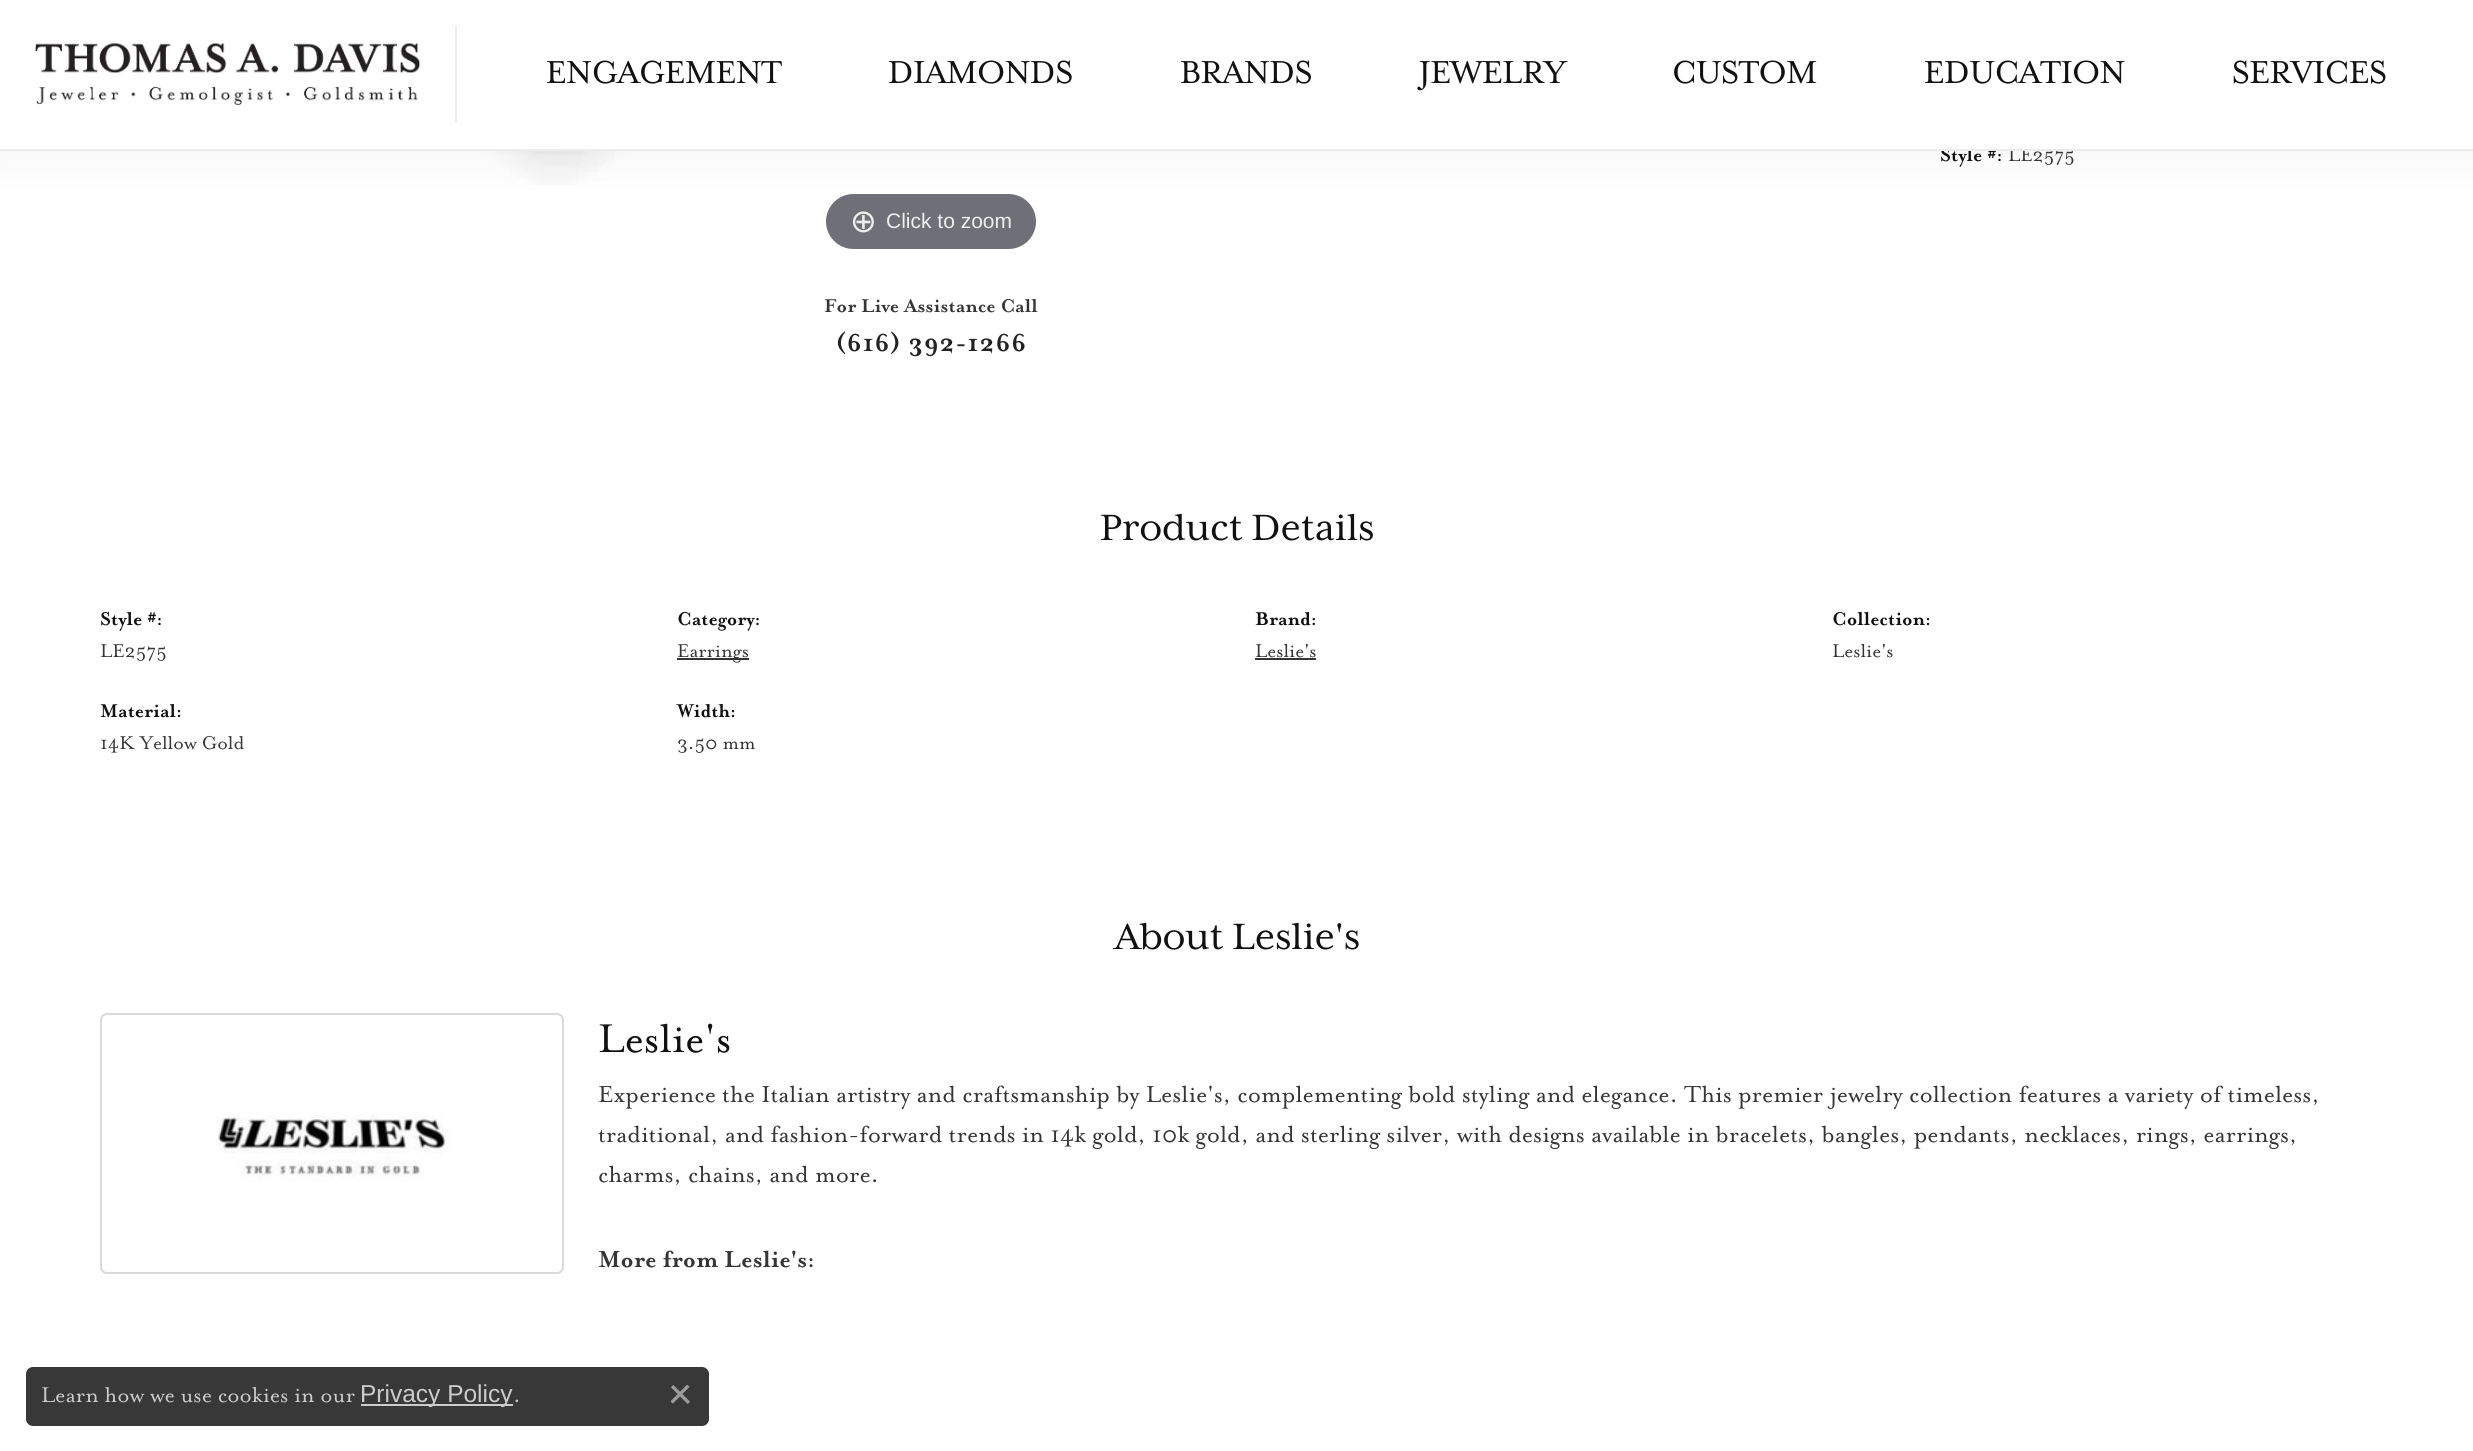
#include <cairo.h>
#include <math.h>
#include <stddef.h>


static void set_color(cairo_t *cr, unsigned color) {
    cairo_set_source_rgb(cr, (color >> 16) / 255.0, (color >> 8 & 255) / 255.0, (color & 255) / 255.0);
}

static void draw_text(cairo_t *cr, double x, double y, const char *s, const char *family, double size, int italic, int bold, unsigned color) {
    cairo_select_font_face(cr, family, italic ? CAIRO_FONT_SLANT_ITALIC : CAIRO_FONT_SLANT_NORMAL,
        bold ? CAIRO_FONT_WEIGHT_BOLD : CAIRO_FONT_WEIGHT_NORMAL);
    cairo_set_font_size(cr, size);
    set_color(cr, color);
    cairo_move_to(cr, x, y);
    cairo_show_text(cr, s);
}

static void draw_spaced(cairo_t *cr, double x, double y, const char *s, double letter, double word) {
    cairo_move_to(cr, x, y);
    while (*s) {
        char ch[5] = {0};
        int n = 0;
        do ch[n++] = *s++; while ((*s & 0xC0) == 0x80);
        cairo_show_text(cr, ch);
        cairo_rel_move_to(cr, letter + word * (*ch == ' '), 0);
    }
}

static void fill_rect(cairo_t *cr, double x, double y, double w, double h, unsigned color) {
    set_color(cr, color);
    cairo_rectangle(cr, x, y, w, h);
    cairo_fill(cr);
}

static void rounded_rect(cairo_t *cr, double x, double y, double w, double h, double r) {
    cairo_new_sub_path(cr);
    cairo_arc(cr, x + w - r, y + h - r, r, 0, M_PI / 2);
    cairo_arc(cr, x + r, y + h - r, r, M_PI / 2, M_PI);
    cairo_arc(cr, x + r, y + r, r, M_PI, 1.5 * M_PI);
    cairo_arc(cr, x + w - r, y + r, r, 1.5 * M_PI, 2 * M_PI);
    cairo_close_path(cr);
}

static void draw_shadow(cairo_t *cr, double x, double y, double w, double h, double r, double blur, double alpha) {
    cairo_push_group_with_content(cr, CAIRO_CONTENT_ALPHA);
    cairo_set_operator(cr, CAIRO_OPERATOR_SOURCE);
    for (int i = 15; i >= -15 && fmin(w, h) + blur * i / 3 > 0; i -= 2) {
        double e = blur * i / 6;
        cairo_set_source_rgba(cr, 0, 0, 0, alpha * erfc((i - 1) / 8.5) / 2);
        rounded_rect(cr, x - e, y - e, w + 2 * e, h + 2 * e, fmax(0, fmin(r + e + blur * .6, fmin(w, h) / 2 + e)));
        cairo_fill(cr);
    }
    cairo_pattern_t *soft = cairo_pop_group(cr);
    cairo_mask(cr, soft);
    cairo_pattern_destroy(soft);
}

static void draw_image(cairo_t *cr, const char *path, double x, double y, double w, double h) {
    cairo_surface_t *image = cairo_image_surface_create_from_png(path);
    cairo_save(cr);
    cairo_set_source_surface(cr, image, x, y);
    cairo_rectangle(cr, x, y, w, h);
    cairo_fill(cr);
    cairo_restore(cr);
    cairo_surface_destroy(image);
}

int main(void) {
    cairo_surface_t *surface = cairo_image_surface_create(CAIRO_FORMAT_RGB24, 2473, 1451);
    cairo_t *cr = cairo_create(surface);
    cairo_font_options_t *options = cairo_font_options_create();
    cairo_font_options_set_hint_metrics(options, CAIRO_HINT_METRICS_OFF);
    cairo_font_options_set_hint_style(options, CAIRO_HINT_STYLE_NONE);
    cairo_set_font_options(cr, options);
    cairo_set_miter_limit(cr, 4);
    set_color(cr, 0xFFFFFF);
    cairo_paint(cr);
    draw_image(cr, "assets/img2.png", 469, 151, 843, 34);
    set_color(cr, 0x6F7077);
    rounded_rect(cr, 826, 194, 210, 55, 27.5);
    cairo_fill(cr);
    set_color(cr, 0x000000);
    draw_shadow(cr, 0, 0, 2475, 151, 0, 26, 0.05);
    draw_text(cr, 1940, 161, "Style #:", "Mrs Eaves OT", 21.25, 0, 1, 0x111111);
    draw_text(cr, 2008, 161, "LE2575", "Mrs Eaves OT", 21.25, 0, 0, 0x353535);
    fill_rect(cr, 0, 0, 2473, 149, 0xFFFFFF);
    fill_rect(cr, 0, 149, 2473, 2, 0xECECEC);
    fill_rect(cr, 455, 26, 2, 97, 0xECECEC);
    draw_image(cr, "assets/img1.png", 35, 43, 386, 62);
    draw_text(cr, 546, 83, "ENGAGEMENT", "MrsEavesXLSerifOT", 36.5, 0, 0, 0x111111);
    draw_text(cr, 888, 83, "DIAMONDS", "MrsEavesXLSerifOT", 36.5, 0, 0, 0x111111);
    draw_text(cr, 1180, 83, "BRANDS", "MrsEavesXLSerifOT", 36.5, 0, 0, 0x111111);
    draw_text(cr, 1419, 83, "JEWELRY", "MrsEavesXLSerifOT", 36.5, 0, 0, 0x111111);
    draw_text(cr, 1672, 83, "CUSTOM", "MrsEavesXLSerifOT", 36.5, 0, 0, 0x111111);
    draw_text(cr, 1924, 83, "EDUCATION", "MrsEavesXLSerifOT", 36.5, 0, 0, 0x111111);
    draw_text(cr, 2232, 83, "SERVICES", "MrsEavesXLSerifOT", 36.5, 0, 0, 0x111111);
    draw_text(cr, 850, 232, "⊕", "DejaVu Sans", 32, 0, 0, 0xEEEEEE);
    draw_text(cr, 886, 228, "Click to zoom", "Liberation Sans", 21, 0, 0, 0xEEEEEE);
    draw_text(cr, 824, 312, "For Live Assistance Call", "Mrs Eaves OT", 21.25, 0, 1, 0x353535);
    cairo_set_font_size(cr, 28);
    set_color(cr, 0x222222);
    draw_spaced(cr, 836, 351, "(616) 392-1266", 0.75, 0);
    draw_text(cr, 1100, 540, "Product Details", "MrsEavesXLSerifOT", 42, 0, 0, 0x111111);
    draw_text(cr, 100, 625, "Style #:", "Mrs Eaves OT", 21.25, 0, 1, 0x111111);
    draw_text(cr, 100, 657, "LE2575", "Mrs Eaves OT", 21.25, 0, 0, 0x353535);
    draw_text(cr, 100, 717, "Material:", "Mrs Eaves OT", 21.25, 0, 1, 0x111111);
    draw_text(cr, 100, 749, "14K Yellow Gold", "Mrs Eaves OT", 21.25, 0, 0, 0x353535);
    draw_text(cr, 677, 625, "Category:", "Mrs Eaves OT", 21.25, 0, 1, 0x111111);
    fill_rect(cr, 677, 658, 72, 2, 0x353535);
    draw_text(cr, 677, 657, "Earrings", "Mrs Eaves OT", 21.25, 0, 0, 0x353535);
    draw_text(cr, 677, 717, "Width:", "Mrs Eaves OT", 21.25, 0, 1, 0x111111);
    draw_text(cr, 677, 749, "3.50 mm", "Mrs Eaves OT", 21.25, 0, 0, 0x353535);
    draw_text(cr, 1255, 625, "Brand:", "Mrs Eaves OT", 21.25, 0, 1, 0x111111);
    draw_text(cr, 1255, 657, "Leslie's", "Mrs Eaves OT", 21.25, 0, 0, 0x353535);
    fill_rect(cr, 1255, 658, 61, 2, 0x353535);
    draw_text(cr, 1832, 625, "Collection:", "Mrs Eaves OT", 21.25, 0, 1, 0x111111);
    draw_text(cr, 1832, 657, "Leslie's", "Mrs Eaves OT", 21.25, 0, 0, 0x353535);
    draw_text(cr, 1115, 949, "About Leslie's", "MrsEavesXLSerifOT", 42, 0, 0, 0x111111);
    rounded_rect(cr, 101, 1014, 462, 259, 6);
    set_color(cr, 0xD9D9D9);
    cairo_stroke(cr);
    draw_image(cr, "assets/img3.png", 216, 1115, 233, 67);
    draw_text(cr, 598, 1052, "Leslie's", "Mrs Eaves OT", 46, 0, 0, 0x111111);
    draw_text(cr, 598, 1102, "Experience the Italian artistry and craftsmanship by Leslie's, complementing bold styling and elegance. This premier jewelry collection features a variety of timeless,", "Mrs Eaves OT", 26.6, 0, 0, 0x353535);
    draw_text(cr, 598, 1142, "traditional, and fashion-forward trends in 14k gold, 10k gold, and sterling silver, with designs available in bracelets, bangles, pendants, necklaces, rings, earrings,", "Mrs Eaves OT", 26.6, 0, 0, 0x353535);
    draw_text(cr, 598, 1182, "charms, chains, and more.", "Mrs Eaves OT", 26.6, 0, 0, 0x353535);
    draw_text(cr, 598, 1267, "More from Leslie's:", "Mrs Eaves OT", 26.6, 0, 1, 0x353535);
    set_color(cr, 0x383838);
    rounded_rect(cr, 26, 1367, 683, 59, 7);
    cairo_fill(cr);
    draw_text(cr, 41, 1402, "Learn how we use cookies in our", "Mrs Eaves OT", 24.5, 0, 0, 0xCCCCCC);
    fill_rect(cr, 361, 1404, 152, 2, 0xCCCCCC);
    draw_text(cr, 360, 1402, "Privacy Policy", "Liberation Sans", 24.5, 0, 0, 0xCCCCCC);
    draw_text(cr, 513, 1402, ".", "Mrs Eaves OT", 24.5, 0, 0, 0xCCCCCC);
    draw_image(cr, "assets/img4.png", 670, 1384, 20, 20);
    cairo_surface_write_to_png(surface, "output.png");
    cairo_font_options_destroy(options);
    cairo_destroy(cr);
    cairo_surface_destroy(surface);
    return 0;
}
